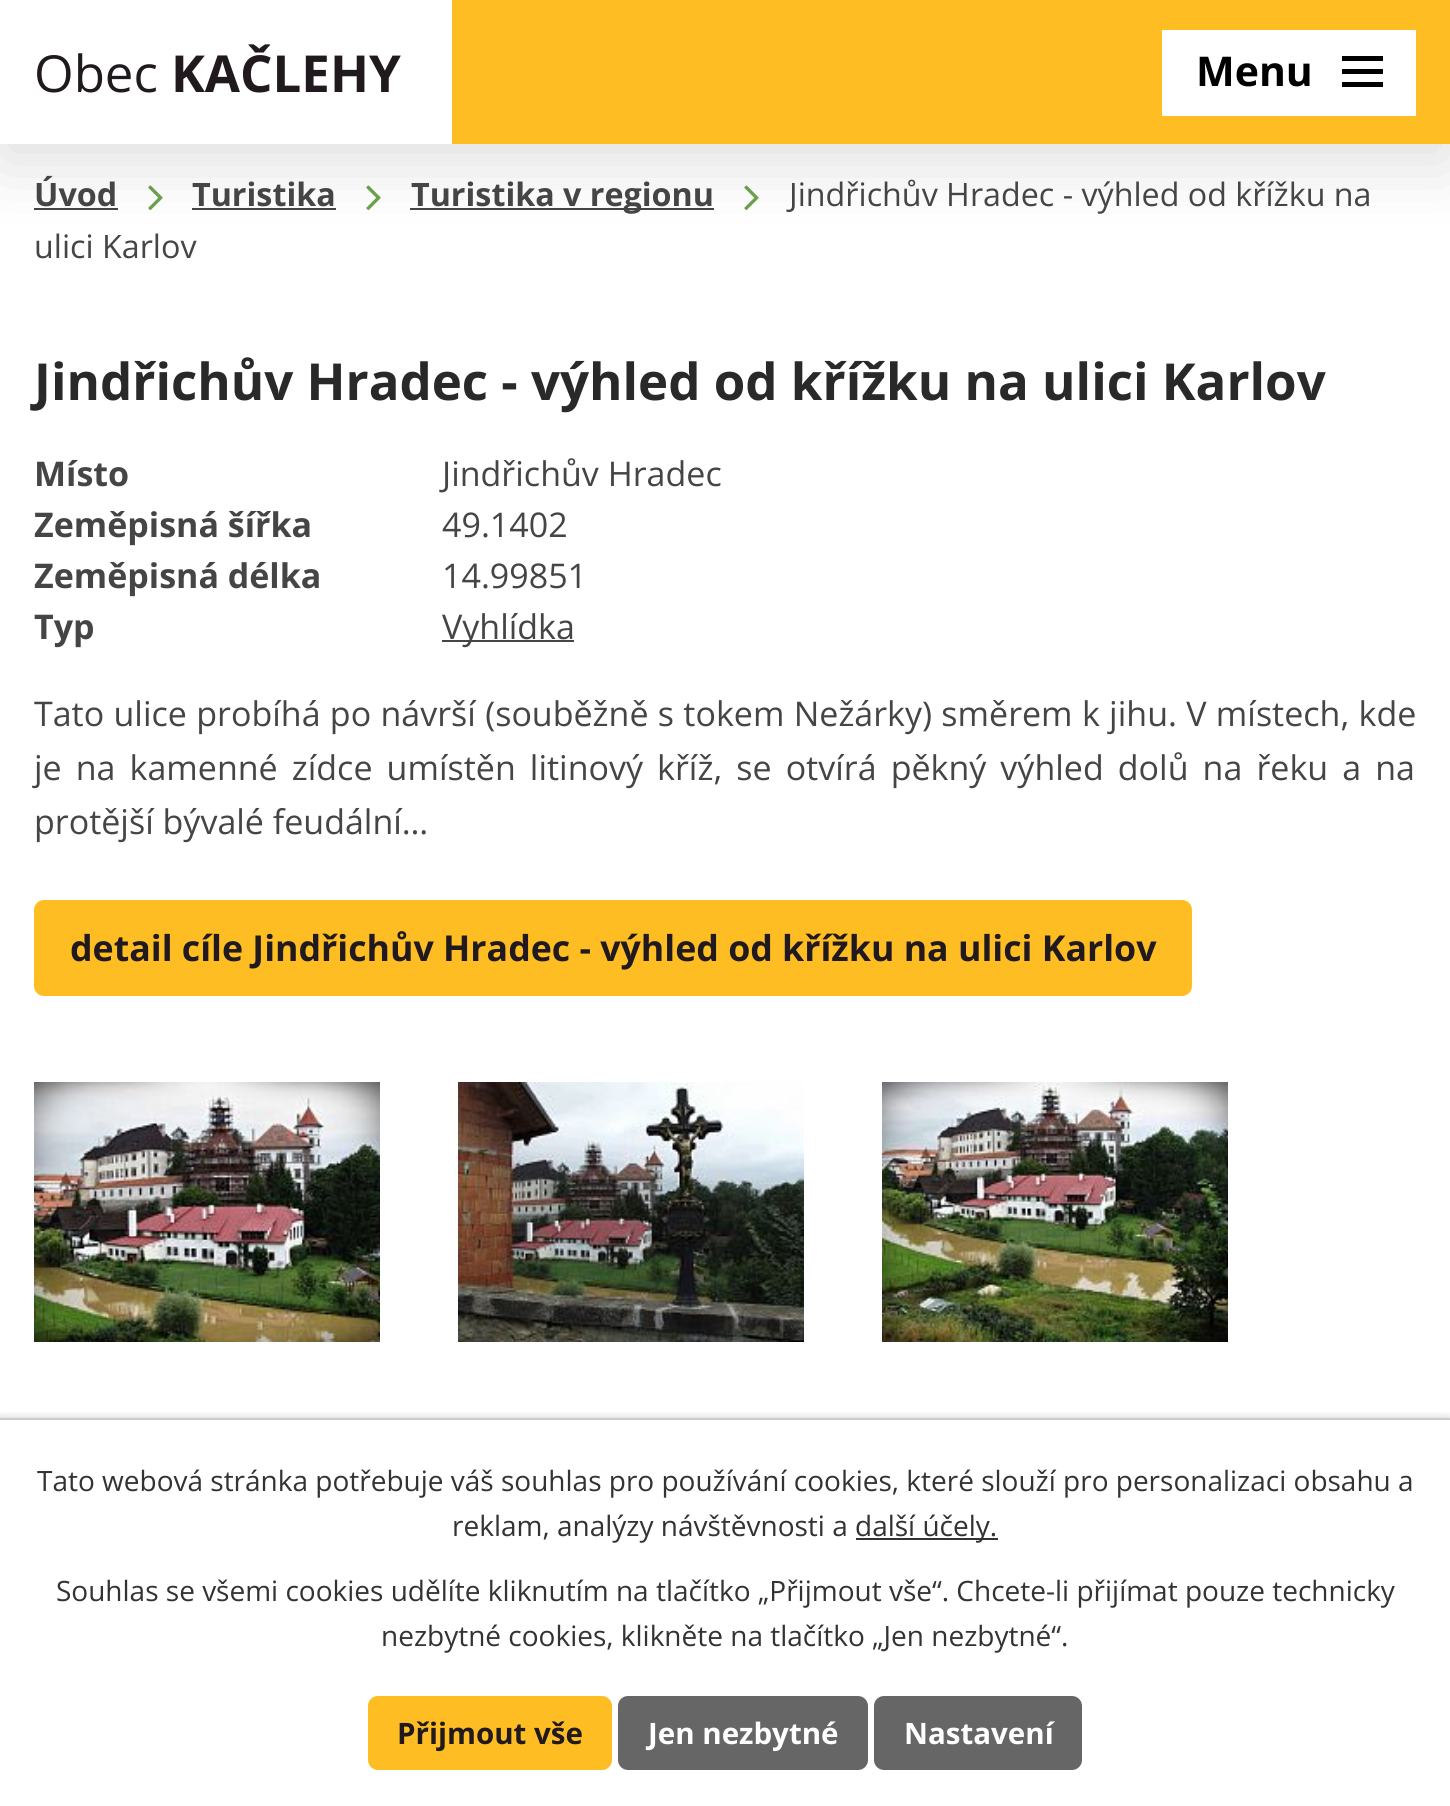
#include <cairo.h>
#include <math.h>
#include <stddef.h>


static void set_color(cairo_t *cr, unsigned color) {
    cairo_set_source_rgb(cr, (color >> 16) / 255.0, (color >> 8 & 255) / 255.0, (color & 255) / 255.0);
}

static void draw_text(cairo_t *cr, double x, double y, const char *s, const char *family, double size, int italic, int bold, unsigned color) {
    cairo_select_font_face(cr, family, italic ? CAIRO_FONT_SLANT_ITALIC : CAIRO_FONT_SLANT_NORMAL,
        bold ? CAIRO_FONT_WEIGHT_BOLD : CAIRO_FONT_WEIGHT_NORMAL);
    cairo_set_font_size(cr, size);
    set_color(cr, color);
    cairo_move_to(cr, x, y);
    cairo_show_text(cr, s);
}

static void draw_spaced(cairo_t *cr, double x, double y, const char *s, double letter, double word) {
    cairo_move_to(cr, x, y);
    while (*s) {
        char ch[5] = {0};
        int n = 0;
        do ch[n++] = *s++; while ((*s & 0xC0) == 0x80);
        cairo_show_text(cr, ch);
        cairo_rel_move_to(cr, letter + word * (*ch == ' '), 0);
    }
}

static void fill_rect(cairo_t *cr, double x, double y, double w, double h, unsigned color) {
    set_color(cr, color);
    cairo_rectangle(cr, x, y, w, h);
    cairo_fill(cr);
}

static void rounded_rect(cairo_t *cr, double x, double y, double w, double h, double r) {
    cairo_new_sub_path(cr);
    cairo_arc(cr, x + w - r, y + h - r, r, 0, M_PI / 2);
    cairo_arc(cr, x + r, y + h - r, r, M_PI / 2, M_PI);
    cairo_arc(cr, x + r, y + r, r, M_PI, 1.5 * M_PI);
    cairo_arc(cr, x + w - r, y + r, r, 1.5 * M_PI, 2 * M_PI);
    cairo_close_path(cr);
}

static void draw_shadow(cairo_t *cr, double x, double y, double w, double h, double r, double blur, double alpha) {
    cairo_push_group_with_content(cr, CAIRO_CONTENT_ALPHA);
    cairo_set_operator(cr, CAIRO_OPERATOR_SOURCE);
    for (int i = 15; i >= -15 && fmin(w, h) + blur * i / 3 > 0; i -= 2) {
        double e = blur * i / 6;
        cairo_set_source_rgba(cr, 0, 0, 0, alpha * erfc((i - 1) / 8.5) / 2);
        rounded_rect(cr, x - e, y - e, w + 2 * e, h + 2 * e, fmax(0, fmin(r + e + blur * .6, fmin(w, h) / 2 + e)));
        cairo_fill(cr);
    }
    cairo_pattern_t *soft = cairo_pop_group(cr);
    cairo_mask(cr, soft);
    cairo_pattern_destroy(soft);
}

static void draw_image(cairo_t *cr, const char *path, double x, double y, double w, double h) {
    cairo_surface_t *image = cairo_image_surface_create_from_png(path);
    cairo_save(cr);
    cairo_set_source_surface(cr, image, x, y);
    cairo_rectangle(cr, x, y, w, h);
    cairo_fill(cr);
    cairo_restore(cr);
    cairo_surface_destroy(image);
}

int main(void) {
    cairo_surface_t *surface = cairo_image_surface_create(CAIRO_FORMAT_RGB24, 1450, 1806);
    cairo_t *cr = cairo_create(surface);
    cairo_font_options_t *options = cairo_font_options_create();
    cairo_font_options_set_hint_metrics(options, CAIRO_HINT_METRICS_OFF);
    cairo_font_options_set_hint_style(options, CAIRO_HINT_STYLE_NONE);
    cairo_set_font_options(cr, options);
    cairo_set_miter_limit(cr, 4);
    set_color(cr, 0xFFFFFF);
    cairo_paint(cr);
    fill_rect(cr, 34, 208, 84, 2, 0x454545);
    draw_image(cr, "assets/img1.png", 148, 185, 15, 25);
    fill_rect(cr, 192, 208, 144, 2, 0x454545);
    draw_image(cr, "assets/img1.png", 366, 185, 15, 25);
    fill_rect(cr, 410, 208, 304, 2, 0x454545);
    draw_image(cr, "assets/img1.png", 744, 185, 15, 25);
    set_color(cr, 0x000000);
    draw_shadow(cr, 0, 16, 1450, 144, 0, 36, 0.14);
    fill_rect(cr, 452, 0, 998, 144, 0xFFBD24);
    fill_rect(cr, 0, 0, 452, 144, 0xFFFFFF);
    draw_text(cr, 34, 92, "Obec", "Open Sans", 51, 0, 0, 0x201A1F);
    draw_text(cr, 171, 92, "KAČLEHY", "Open Sans", 51, 0, 1, 0x201A1F);
    fill_rect(cr, 1162, 30, 254, 86, 0xFFFFFF);
    draw_text(cr, 1196, 86, "Menu", "Open Sans", 41, 0, 1, 0x000000);
    cairo_new_path(cr);
    cairo_move_to(cr, 1342, 87);
    cairo_line_to(cr, 1342, 82);
    cairo_line_to(cr, 1383, 82);
    cairo_line_to(cr, 1383, 87);
    cairo_close_path(cr);
    cairo_move_to(cr, 1342, 56);
    cairo_line_to(cr, 1383, 56);
    cairo_line_to(cr, 1383, 61);
    cairo_line_to(cr, 1342, 61);
    cairo_close_path(cr);
    cairo_move_to(cr, 1342, 74);
    cairo_line_to(cr, 1342, 69);
    cairo_line_to(cr, 1383, 69);
    cairo_line_to(cr, 1383, 74);
    cairo_close_path(cr);
    cairo_fill(cr);
    draw_text(cr, 34, 206, "Úvod", "Open Sans", 32.25, 0, 1, 0x454545);
    draw_text(cr, 192, 206, "Turistika", "Open Sans", 32.25, 0, 1, 0x454545);
    draw_text(cr, 411, 206, "Turistika v regionu", "Open Sans", 32.25, 0, 1, 0x454545);
    draw_text(cr, 789, 206, "Jindřichův Hradec - výhled od křížku na", "Open Sans", 32.25, 0, 0, 0x454545);
    draw_text(cr, 34, 258, "ulici Karlov", "Open Sans", 32.25, 0, 0, 0x454545);
    draw_text(cr, 34, 400, "Jindřichův Hradec - výhled od křížku na ulici Karlov", "Open Sans", 51, 0, 1, 0x292929);
    draw_text(cr, 34, 486, "Místo", "Open Sans", 34, 0, 1, 0x454545);
    draw_text(cr, 442, 486, "Jindřichův Hradec", "Open Sans", 34, 0, 0, 0x454545);
    draw_text(cr, 34, 537, "Zeměpisná šířka", "Open Sans", 34, 0, 1, 0x454545);
    draw_text(cr, 442, 537, "49.1402", "Open Sans", 34, 0, 0, 0x454545);
    draw_text(cr, 34, 588, "Zeměpisná délka", "Open Sans", 34, 0, 1, 0x454545);
    draw_text(cr, 442, 588, "14.99851", "Open Sans", 34, 0, 0, 0x454545);
    draw_text(cr, 34, 639, "Typ", "Open Sans", 34, 0, 1, 0x454545);
    fill_rect(cr, 442, 640, 132, 2, 0x454545);
    draw_text(cr, 442, 639, "Vyhlídka", "Open Sans", 34, 0, 0, 0x454545);
    draw_spaced(cr, 34, 726, "Tato ulice probíhá po návrší (souběžně s tokem Nežárky) směrem k jihu. V místech, kde", 0, 0.5);
    draw_spaced(cr, 34, 780, "je na kamenné zídce umístěn litinový kříž, se otvírá pěkný výhled dolů na řeku a na", 0, 5.25);
    draw_text(cr, 34, 834, "protější bývalé feudální…", "Open Sans", 34, 0, 0, 0x454545);
    set_color(cr, 0xFFBD24);
    rounded_rect(cr, 34, 900, 1158, 96, 10);
    cairo_fill(cr);
    draw_text(cr, 70, 961, "detail cíle Jindřichův Hradec - výhled od křížku na ulici Karlov", "Open Sans", 35.7, 0, 1, 0x201A1F);
    draw_image(cr, "assets/img2.png", 34, 1082, 346, 260);
    draw_image(cr, "assets/img3.png", 458, 1082, 346, 260);
    draw_image(cr, "assets/img4.png", 882, 1082, 346, 260);
    cairo_save(cr);
    cairo_rectangle(cr, 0, 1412, 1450, 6);
    cairo_clip(cr);
    set_color(cr, 0x000000);
    draw_shadow(cr, 0, 1418, 1450, 388, 0, 5, 0.2);
    cairo_restore(cr);
    fill_rect(cr, 0, 1418, 1450, 2, 0xCCCCCC);
    draw_text(cr, 37, 1491, "Tato webová stránka potřebuje váš souhlas pro používání cookies, které slouží pro personalizaci obsahu a", "Open Sans", 28, 0, 0, 0x333333);
    draw_text(cr, 452, 1536, "reklam, analýzy návštěvnosti a", "Open Sans", 28, 0, 0, 0x333333);
    fill_rect(cr, 856, 1538, 142, 2, 0x333333);
    draw_text(cr, 855, 1536, "další účely.", "Open Sans", 28, 0, 0, 0x333333);
    draw_text(cr, 56, 1601, "Souhlas se všemi cookies udělíte kliknutím na tlačítko „Přijmout vše“. Chcete-li přijímat pouze technicky", "Open Sans", 28, 0, 0, 0x333333);
    draw_text(cr, 381, 1646, "nezbytné cookies, klikněte na tlačítko „Jen nezbytné“.", "Open Sans", 28, 0, 0, 0x333333);
    set_color(cr, 0xFFBD24);
    rounded_rect(cr, 368, 1696, 244, 74, 10);
    cairo_fill(cr);
    draw_text(cr, 397, 1744, "Přijmout vše", "Open Sans", 29.5, 0, 1, 0x201A1F);
    set_color(cr, 0x666666);
    rounded_rect(cr, 618, 1696, 250, 74, 10);
    cairo_fill(cr);
    draw_text(cr, 648, 1744, "Jen nezbytné", "Open Sans", 29.5, 0, 1, 0xFFFFFF);
    set_color(cr, 0x666666);
    rounded_rect(cr, 874, 1696, 208, 74, 10);
    cairo_fill(cr);
    draw_text(cr, 904, 1744, "Nastavení", "Open Sans", 29.5, 0, 1, 0xFFFFFF);
    cairo_surface_write_to_png(surface, "output.png");
    cairo_font_options_destroy(options);
    cairo_destroy(cr);
    cairo_surface_destroy(surface);
    return 0;
}
